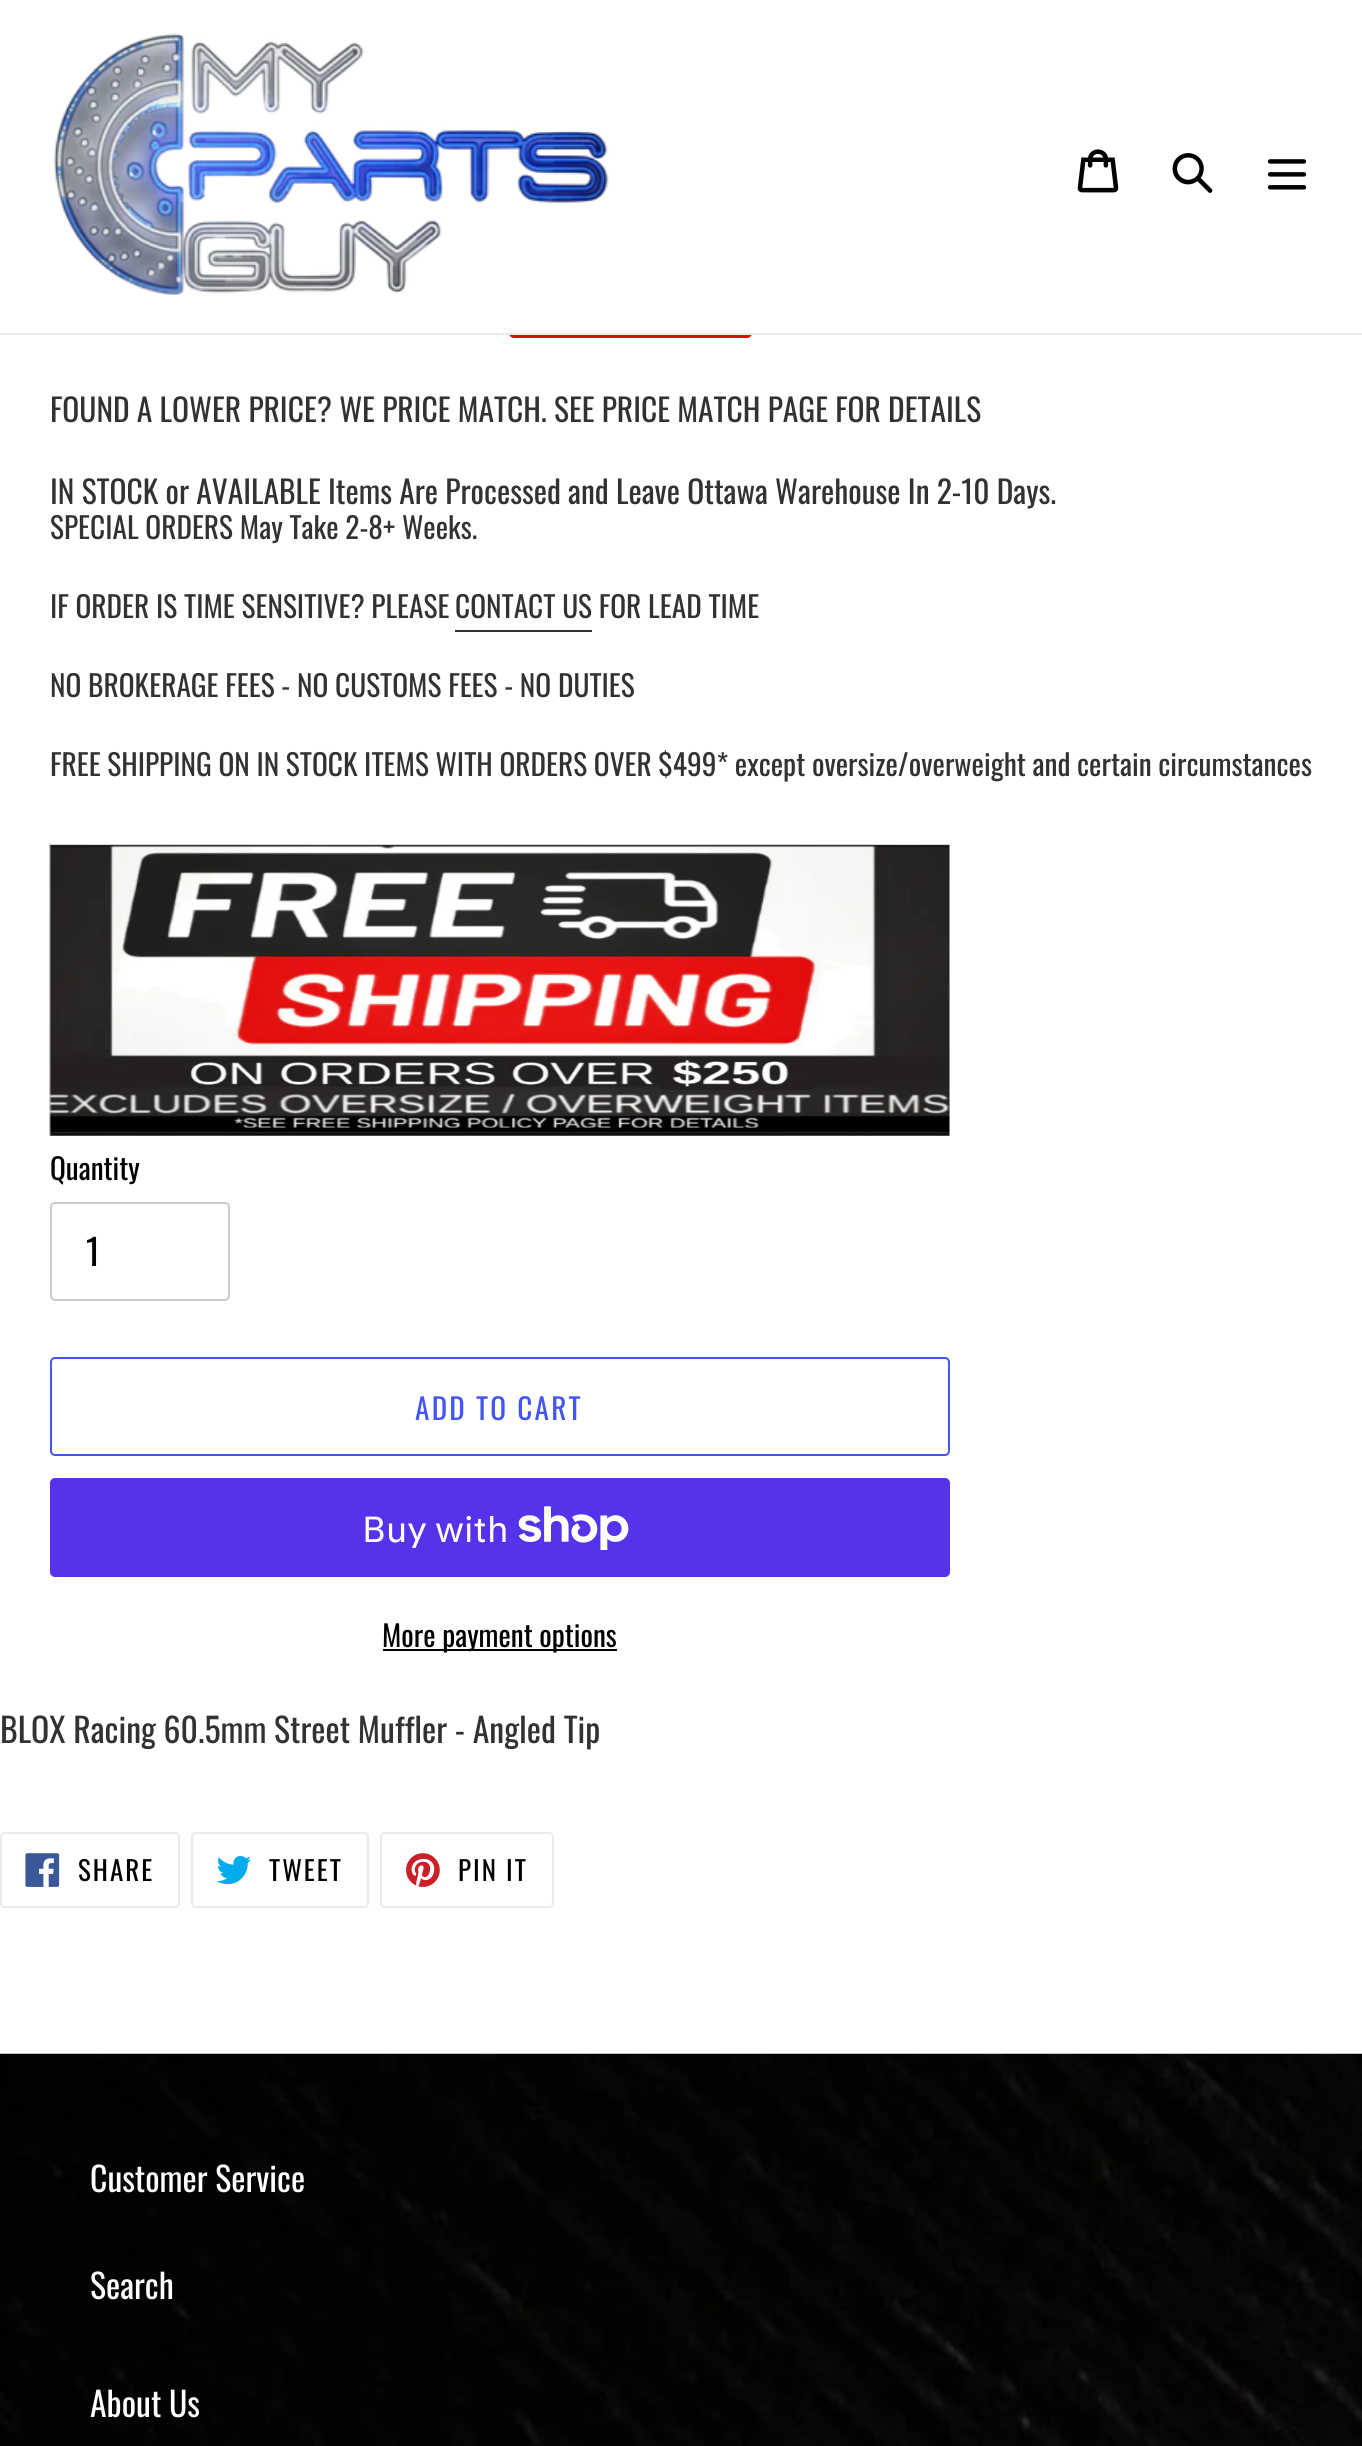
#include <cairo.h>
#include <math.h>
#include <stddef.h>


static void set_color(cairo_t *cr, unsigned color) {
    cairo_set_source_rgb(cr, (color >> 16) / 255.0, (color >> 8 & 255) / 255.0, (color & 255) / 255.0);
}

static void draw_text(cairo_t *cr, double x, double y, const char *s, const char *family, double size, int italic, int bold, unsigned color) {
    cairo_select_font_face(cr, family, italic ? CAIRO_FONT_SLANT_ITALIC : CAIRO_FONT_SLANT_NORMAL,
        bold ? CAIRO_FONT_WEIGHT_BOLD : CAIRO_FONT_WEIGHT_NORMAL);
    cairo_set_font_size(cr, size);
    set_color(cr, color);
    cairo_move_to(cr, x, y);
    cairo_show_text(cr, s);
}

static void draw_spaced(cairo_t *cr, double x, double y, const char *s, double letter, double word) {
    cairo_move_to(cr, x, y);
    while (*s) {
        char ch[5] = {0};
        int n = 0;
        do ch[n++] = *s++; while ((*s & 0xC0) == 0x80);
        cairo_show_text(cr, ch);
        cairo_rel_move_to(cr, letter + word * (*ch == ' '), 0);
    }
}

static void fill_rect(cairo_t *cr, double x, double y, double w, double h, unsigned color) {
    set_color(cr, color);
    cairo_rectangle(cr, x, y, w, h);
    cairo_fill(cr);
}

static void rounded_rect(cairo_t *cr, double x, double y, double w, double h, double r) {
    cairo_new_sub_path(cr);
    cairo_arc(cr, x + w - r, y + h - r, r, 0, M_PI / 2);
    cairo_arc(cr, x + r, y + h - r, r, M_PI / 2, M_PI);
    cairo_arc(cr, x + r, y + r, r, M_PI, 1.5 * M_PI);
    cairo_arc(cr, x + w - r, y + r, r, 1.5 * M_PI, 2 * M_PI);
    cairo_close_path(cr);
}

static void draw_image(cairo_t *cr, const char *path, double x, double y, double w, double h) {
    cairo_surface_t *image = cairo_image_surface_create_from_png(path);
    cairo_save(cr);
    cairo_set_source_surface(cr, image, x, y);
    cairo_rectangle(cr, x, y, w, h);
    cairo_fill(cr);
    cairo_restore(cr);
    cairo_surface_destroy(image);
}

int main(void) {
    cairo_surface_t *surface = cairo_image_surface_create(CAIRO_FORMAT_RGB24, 1362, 2446);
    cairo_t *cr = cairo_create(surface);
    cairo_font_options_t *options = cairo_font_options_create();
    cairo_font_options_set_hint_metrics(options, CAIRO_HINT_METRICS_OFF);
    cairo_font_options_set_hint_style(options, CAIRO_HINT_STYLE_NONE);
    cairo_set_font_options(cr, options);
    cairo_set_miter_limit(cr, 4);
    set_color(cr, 0xFFFFFF);
    cairo_paint(cr);
    set_color(cr, 0xEA0606);
    rounded_rect(cr, 510, 298, 241, 39, 4);
    cairo_fill_preserve(cr);
    cairo_stroke(cr);
    fill_rect(cr, 509, 297, 243, 36, 0xFFFFFF);
    fill_rect(cr, 0, 333, 1362, 2, 0xEBEBEB);
    draw_image(cr, "assets/img1.png", 54, 33, 555, 262);
    draw_image(cr, "assets/img2.png", 1077, 149, 42, 44);
    draw_image(cr, "assets/img3.png", 1172, 153, 41, 40);
    draw_image(cr, "assets/img4.png", 1267, 159, 40, 31);
    draw_text(cr, 50, 422, "FOUND A LOWER PRICE? WE PRICE MATCH. SEE PRICE MATCH PAGE FOR DETAILS", "Oswald", 31.5, 0, 0, 0x333232);
    draw_text(cr, 50, 504, "IN STOCK or AVAILABLE Items Are Processed and Leave Ottawa Warehouse In 2-10 Days.", "Oswald", 31.5, 0, 0, 0x333232);
    draw_text(cr, 50, 539, "SPECIAL ORDERS May Take 2-8+ Weeks.", "Oswald", 29.4, 0, 0, 0x333232);
    draw_text(cr, 50, 618, "IF ORDER IS TIME SENSITIVE? PLEASE", "Oswald", 29.4, 0, 0, 0x333232);
    draw_text(cr, 455, 618, "CONTACT US FOR LEAD TIME", "Oswald", 29.4, 0, 0, 0x333232);
    fill_rect(cr, 455, 630, 137, 2, 0x333232);
    draw_text(cr, 50, 697, "NO BROKERAGE FEES - NO CUSTOMS FEES - NO DUTIES", "Oswald", 29.4, 0, 0, 0x333232);
    draw_spaced(cr, 50, 776, "FREE SHIPPING ON IN STOCK ITEMS WITH ORDERS OVER $499* except oversize/overweight and certain circumstances", 0, -0.1);
    draw_image(cr, "assets/img5.png", 49, 843, 901, 293);
    draw_text(cr, 50, 1180, "Quantity", "Oswald", 29.25, 0, 0, 0x000000);
    rounded_rect(cr, 51, 1203, 178, 97, 4);
    set_color(cr, 0xCCCCCC);
    cairo_stroke(cr);
    draw_text(cr, 86, 1266, "1", "Oswald", 36, 0, 0, 0x000000);
    rounded_rect(cr, 51, 1358, 898, 97, 4);
    set_color(cr, 0x4456F2);
    cairo_stroke(cr);
    cairo_set_font_size(cr, 29.25);
    draw_spaced(cr, 415, 1420, "ADD TO CART", 2.25, 0);
    set_color(cr, 0x5433EB);
    rounded_rect(cr, 50, 1478, 900, 99, 5);
    cairo_fill(cr);
    draw_text(cr, 362, 1542, "Buy with", "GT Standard", 36, 0, 0, 0xFFFFFF);
    draw_image(cr, "assets/img6.png", 518, 1506, 111, 44);
    fill_rect(cr, 383, 1649, 234, 2, 0x000000);
    draw_text(cr, 382, 1647, "More payment options", "Oswald", 29.25, 0, 0, 0x000000);
    draw_text(cr, 0, 1743, "BLOX Racing 60.5mm Street Muffler - Angled Tip", "Oswald", 33.75, 0, 0, 0x333232);
    rounded_rect(cr, 1, 1833, 178, 74, 4);
    set_color(cr, 0xEBEBEB);
    cairo_stroke(cr);
    draw_image(cr, "assets/img7.png", 25, 1853, 35, 34);
    cairo_set_font_size(cr, 27);
    set_color(cr, 0x000000);
    draw_spaced(cr, 78, 1881, "SHARE", 2, 0);
    rounded_rect(cr, 192, 1833, 176, 74, 4);
    set_color(cr, 0xEBEBEB);
    cairo_stroke(cr);
    draw_image(cr, "assets/img8.png", 216, 1856, 35, 29);
    set_color(cr, 0x000000);
    draw_spaced(cr, 269, 1881, "TWEET", 2, 0);
    rounded_rect(cr, 381, 1833, 172, 74, 4);
    set_color(cr, 0xEBEBEB);
    cairo_stroke(cr);
    draw_image(cr, "assets/img9.png", 406, 1853, 34, 34);
    set_color(cr, 0x000000);
    draw_spaced(cr, 458, 1881, "PIN IT", 2, 0);
    draw_image(cr, "assets/img10.png", 0, 2053, 1362, 393);
    draw_text(cr, 90, 2192, "Customer Service", "Oswald", 33.75, 0, 0, 0xFFFFFF);
    draw_text(cr, 90, 2299, "Search", "Oswald", 33.75, 0, 0, 0xFFFFFF);
    draw_text(cr, 90, 2417, "About Us", "Oswald", 33.75, 0, 0, 0xFFFFFF);
    cairo_surface_write_to_png(surface, "output.png");
    cairo_font_options_destroy(options);
    cairo_destroy(cr);
    cairo_surface_destroy(surface);
    return 0;
}
